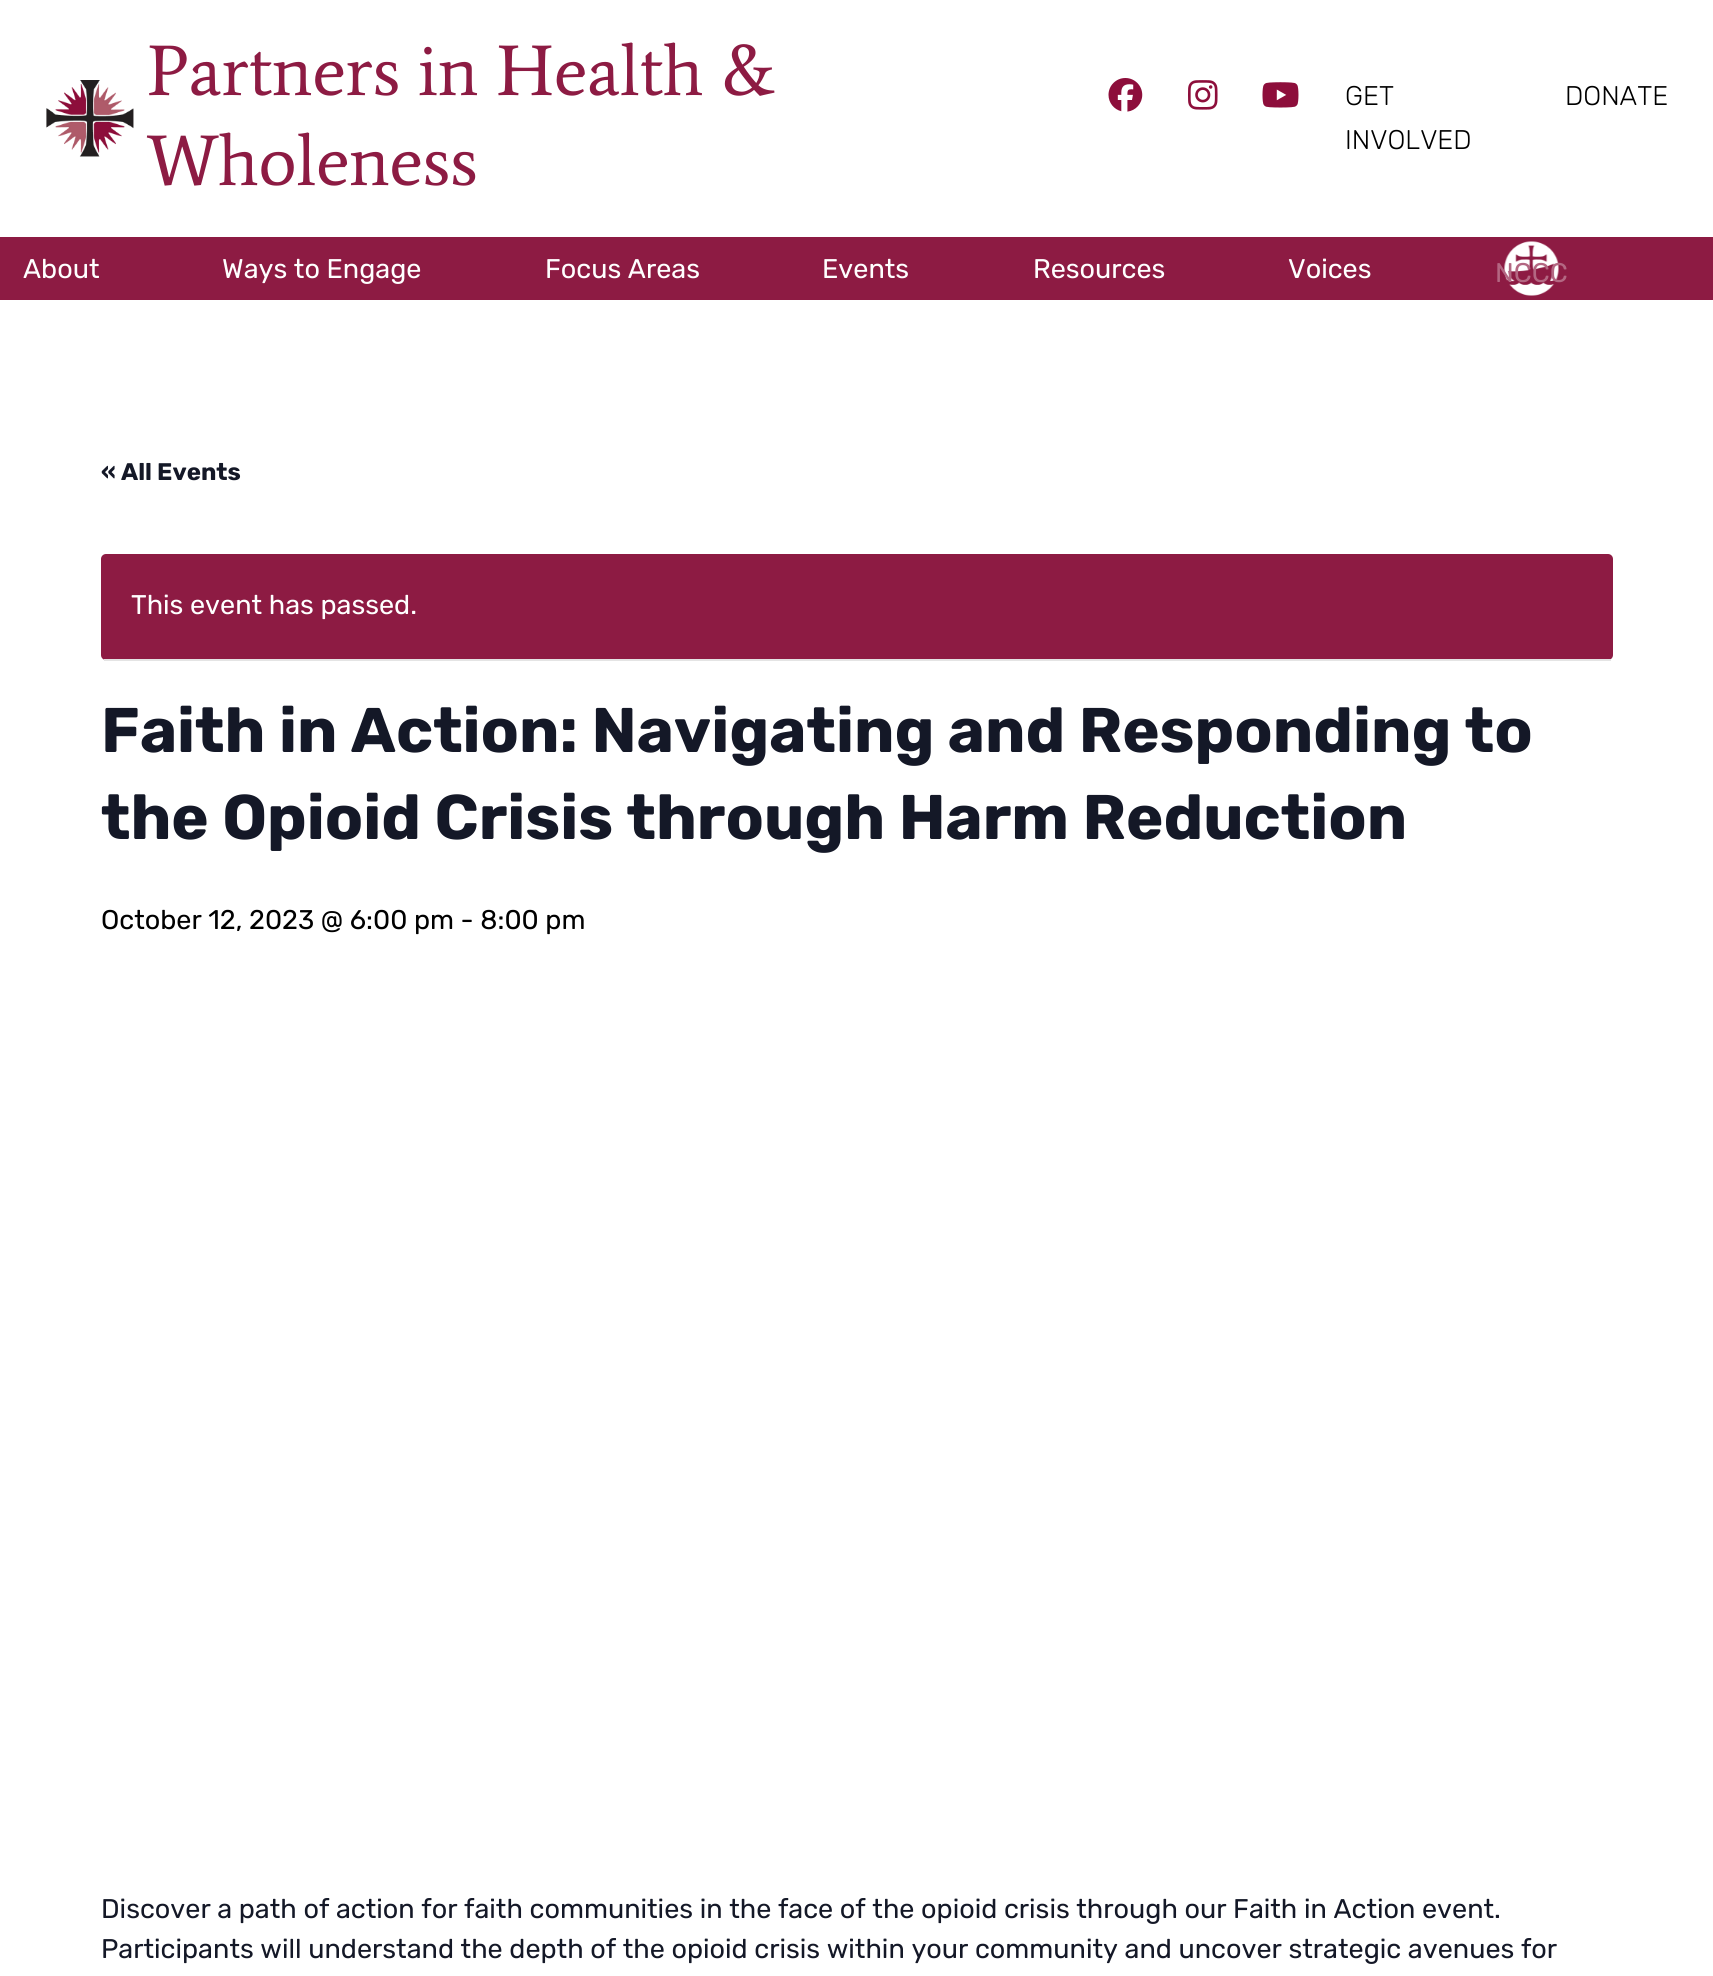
#include <cairo.h>
#include <math.h>
#include <stddef.h>


static void set_color(cairo_t *cr, unsigned color) {
    cairo_set_source_rgb(cr, (color >> 16) / 255.0, (color >> 8 & 255) / 255.0, (color & 255) / 255.0);
}

static void draw_text(cairo_t *cr, double x, double y, const char *s, const char *family, double size, int italic, int bold, unsigned color) {
    cairo_select_font_face(cr, family, italic ? CAIRO_FONT_SLANT_ITALIC : CAIRO_FONT_SLANT_NORMAL,
        bold ? CAIRO_FONT_WEIGHT_BOLD : CAIRO_FONT_WEIGHT_NORMAL);
    cairo_set_font_size(cr, size);
    set_color(cr, color);
    cairo_move_to(cr, x, y);
    cairo_show_text(cr, s);
}

static void fill_rect(cairo_t *cr, double x, double y, double w, double h, unsigned color) {
    set_color(cr, color);
    cairo_rectangle(cr, x, y, w, h);
    cairo_fill(cr);
}

static void rounded_rect(cairo_t *cr, double x, double y, double w, double h, double r) {
    cairo_new_sub_path(cr);
    cairo_arc(cr, x + w - r, y + h - r, r, 0, M_PI / 2);
    cairo_arc(cr, x + r, y + h - r, r, M_PI / 2, M_PI);
    cairo_arc(cr, x + r, y + r, r, M_PI, 1.5 * M_PI);
    cairo_arc(cr, x + w - r, y + r, r, 1.5 * M_PI, 2 * M_PI);
    cairo_close_path(cr);
}

static void draw_image(cairo_t *cr, const char *path, double x, double y, double w, double h) {
    cairo_surface_t *image = cairo_image_surface_create_from_png(path);
    cairo_save(cr);
    cairo_set_source_surface(cr, image, x, y);
    cairo_rectangle(cr, x, y, w, h);
    cairo_fill(cr);
    cairo_restore(cr);
    cairo_surface_destroy(image);
}

int main(void) {
    cairo_surface_t *surface = cairo_image_surface_create(CAIRO_FORMAT_RGB24, 1713, 1976);
    cairo_t *cr = cairo_create(surface);
    cairo_font_options_t *options = cairo_font_options_create();
    cairo_font_options_set_hint_metrics(options, CAIRO_HINT_METRICS_OFF);
    cairo_font_options_set_hint_style(options, CAIRO_HINT_STYLE_NONE);
    cairo_set_font_options(cr, options);
    cairo_set_miter_limit(cr, 4);
    set_color(cr, 0xFFFFFF);
    cairo_paint(cr);
    draw_image(cr, "assets/img1.png", 46, 80, 88, 77);
    draw_text(cr, 147, 95, "Partners in Health &", "Average", 72, 0, 0, 0x8D1B43);
    draw_text(cr, 147, 185, "Wholeness", "Average", 72, 0, 0, 0x8D1B43);
    draw_image(cr, "assets/img2.png", 1108, 78, 35, 34);
    draw_image(cr, "assets/img3.png", 1188, 80, 30, 30);
    draw_image(cr, "assets/img4.png", 1262, 82, 37, 26);
    draw_text(cr, 1345, 105, "GET", "Rubik Light", 27, 0, 0, 0x000000);
    draw_text(cr, 1345, 149, "INVOLVED", "Rubik Light", 27, 0, 0, 0x000000);
    draw_text(cr, 1565, 105, "DONATE", "Rubik Light", 27, 0, 0, 0x000000);
    fill_rect(cr, 0, 237, 1713, 63, 0x8D1B43);
    draw_text(cr, 23, 278, "About", "Rubik", 27, 0, 0, 0xFFFFFF);
    draw_text(cr, 222, 278, "Ways to Engage", "Rubik", 27, 0, 0, 0xFFFFFF);
    draw_text(cr, 545, 278, "Focus Areas", "Rubik", 27, 0, 0, 0xFFFFFF);
    draw_text(cr, 822, 278, "Events", "Rubik", 27, 0, 0, 0xFFFFFF);
    draw_text(cr, 1033, 278, "Resources", "Rubik", 27, 0, 0, 0xFFFFFF);
    draw_text(cr, 1288, 278, "Voices", "Rubik", 27, 0, 0, 0xFFFFFF);
    draw_image(cr, "assets/img5.png", 1504, 241, 55, 55);
    draw_text(cr, 1495, 282, "NCCC", "Rubik", 27, 0, 0, 0xB36782);
    draw_text(cr, 101, 480, "« All Events", "Rubik", 24, 0, 1, 0x141827);
    set_color(cr, 0x8D1B43);
    rounded_rect(cr, 101, 554, 1512, 106, 5);
    cairo_fill(cr);
    fill_rect(cr, 104, 659, 1507, 2, 0xE4E4E4);
    draw_text(cr, 131, 614, "This event has passed.", "Rubik", 27, 0, 0, 0xFFFFFF);
    draw_text(cr, 101, 752, "Faith in Action: Navigating and Responding to", "Rubik", 63, 0, 1, 0x141827);
    draw_text(cr, 101, 839, "the Opioid Crisis through Harm Reduction", "Rubik", 63, 0, 1, 0x141827);
    draw_text(cr, 101, 929, "October 12, 2023 @ 6:00 pm - 8:00 pm", "Rubik", 27, 0, 0, 0x000000);
    draw_text(cr, 101, 1918, "Discover a path of action for faith communities in the face of the opioid crisis through our Faith in Action event.", "Rubik", 27, 0, 0, 0x141827);
    draw_text(cr, 101, 1958, "Participants will understand the depth of the opioid crisis within your community and uncover strategic avenues for", "Rubik", 27, 0, 0, 0x141827);
    cairo_surface_write_to_png(surface, "output.png");
    cairo_font_options_destroy(options);
    cairo_destroy(cr);
    cairo_surface_destroy(surface);
    return 0;
}
